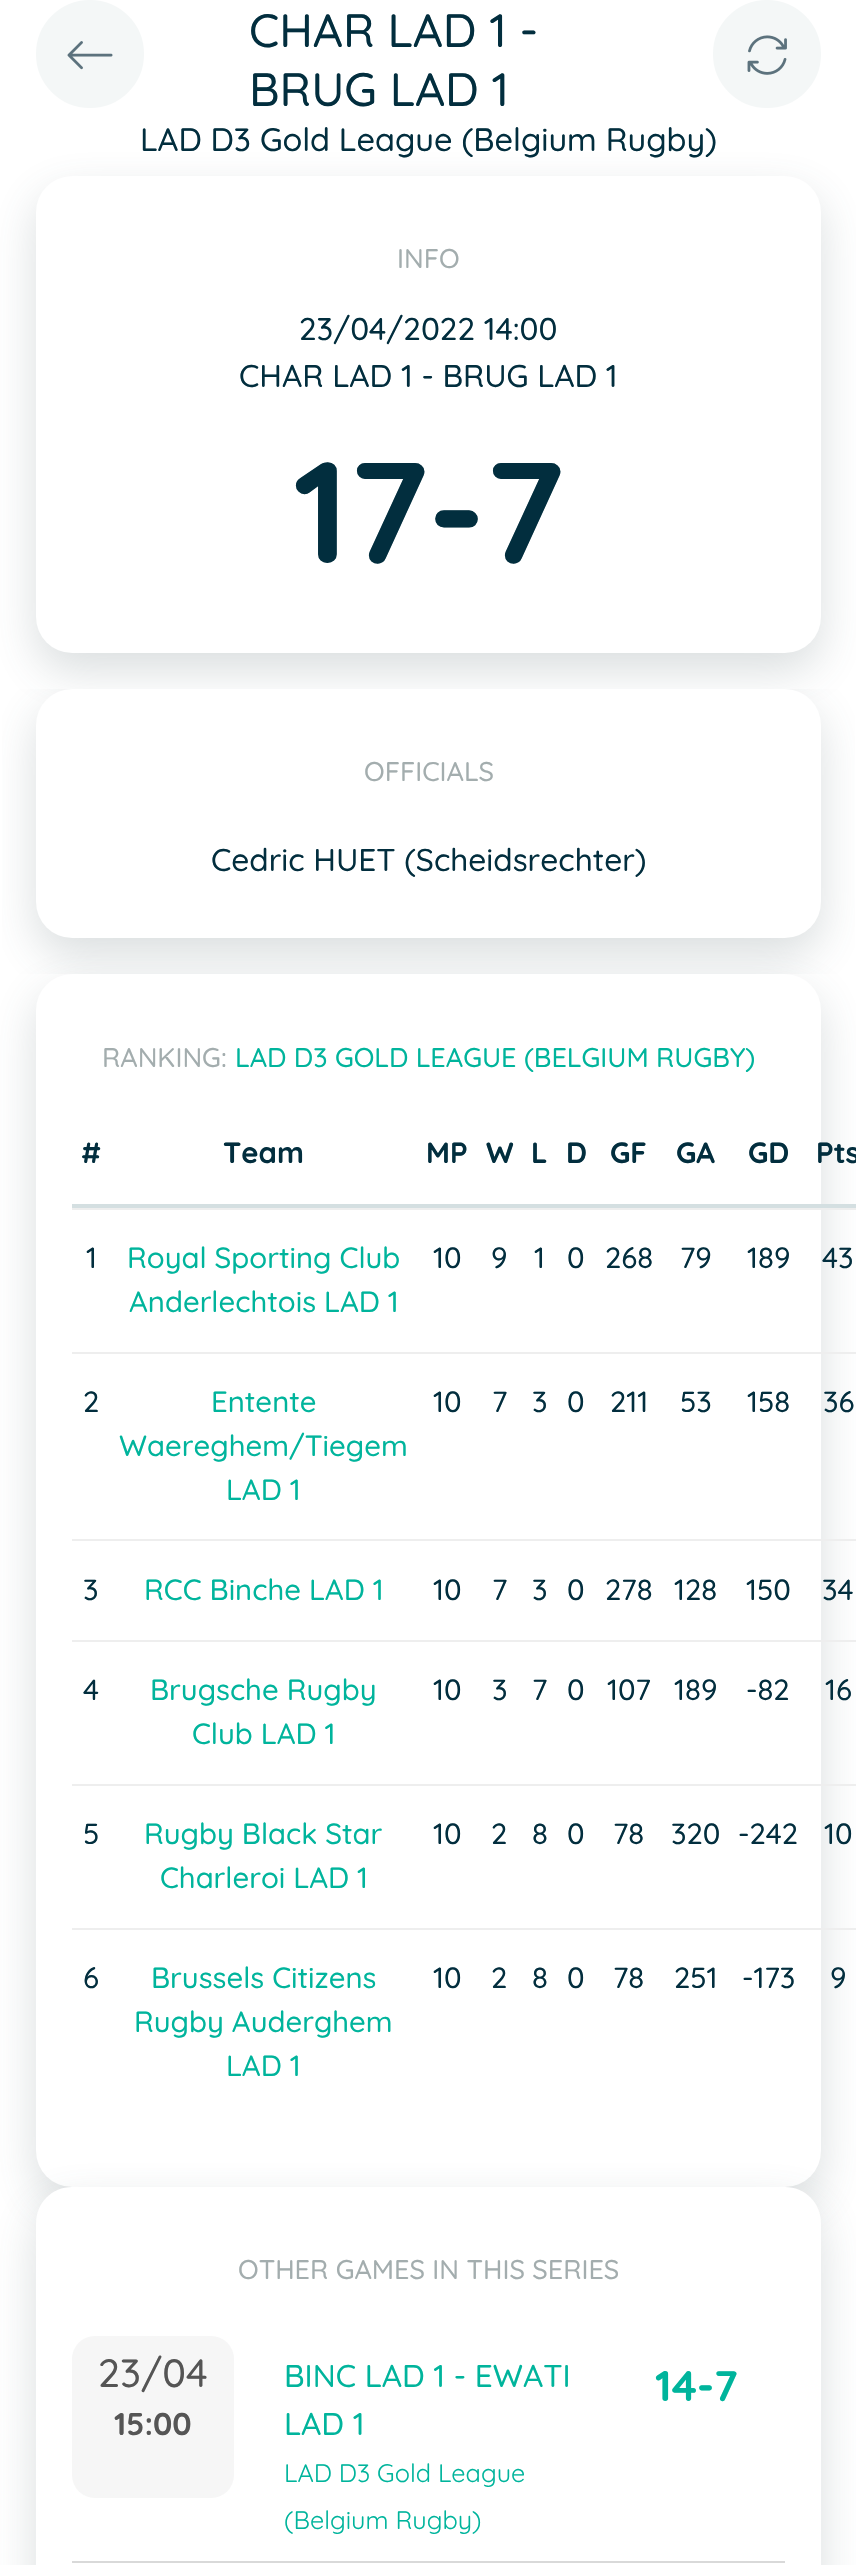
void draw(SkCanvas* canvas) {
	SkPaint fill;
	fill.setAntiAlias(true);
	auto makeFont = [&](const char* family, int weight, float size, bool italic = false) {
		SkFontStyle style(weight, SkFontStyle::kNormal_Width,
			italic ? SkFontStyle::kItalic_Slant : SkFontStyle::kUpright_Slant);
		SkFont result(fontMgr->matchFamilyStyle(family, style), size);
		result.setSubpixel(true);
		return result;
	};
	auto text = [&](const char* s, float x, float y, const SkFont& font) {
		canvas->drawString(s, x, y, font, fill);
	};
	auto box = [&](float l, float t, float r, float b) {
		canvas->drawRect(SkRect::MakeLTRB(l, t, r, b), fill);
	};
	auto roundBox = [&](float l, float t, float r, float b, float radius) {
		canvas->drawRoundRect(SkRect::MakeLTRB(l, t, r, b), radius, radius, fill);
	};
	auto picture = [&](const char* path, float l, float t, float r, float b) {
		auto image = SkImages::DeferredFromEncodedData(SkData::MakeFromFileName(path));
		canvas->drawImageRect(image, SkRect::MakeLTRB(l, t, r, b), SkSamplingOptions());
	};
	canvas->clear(0xFFFFFFFF);
	fill.setColor(0xFFF4F7F7);
	canvas->drawCircle(90, 54, 53, fill);
	fill.setStyle(SkPaint::kStroke_Style);
	fill.setStrokeWidth(2);
	canvas->drawCircle(90, 54, 53, fill);
	picture("image0.png", 67, 41, 113, 70);
	fill.setStyle(SkPaint::kFill_Style);
	canvas->drawCircle(767, 54, 53, fill);
	fill.setStyle(SkPaint::kStroke_Style);
	canvas->drawCircle(767, 54, 53, fill);
	picture("image1.png", 747, 35, 787, 75);
	fill.setStyle(SkPaint::kFill_Style);
	fill.setColor(0x33475C5D);
	fill.setMaskFilter(SkMaskFilter::MakeBlur(kNormal_SkBlurStyle, 22.5f));
	canvas->drawRoundRect(SkRect::MakeLTRB(36, 194, 821, 671), 36, 36, fill);
	fill.setMaskFilter(nullptr);
	fill.setColor(0xFFFFFFFF);
	roundBox(36, 176, 821, 653, 36);
	canvas->save();
	canvas->clipRect(SkRect::MakeLTRB(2, 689, 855, 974));
	fill.setColor(0x33475C5D);
	fill.setMaskFilter(SkMaskFilter::MakeBlur(kNormal_SkBlurStyle, 22.5f));
	canvas->drawRoundRect(SkRect::MakeLTRB(36, 707, 821, 956), 36, 36, fill);
	fill.setMaskFilter(nullptr);
	canvas->restore();
	fill.setColor(0xFFFFFFFF);
	roundBox(36, 689, 821, 938, 36);
	fill.setColor(0x33475C5D);
	fill.setMaskFilter(SkMaskFilter::MakeBlur(kNormal_SkBlurStyle, 22.5f));
	canvas->drawRoundRect(SkRect::MakeLTRB(36, 992, 821, 2205), 36, 36, fill);
	fill.setMaskFilter(nullptr);
	fill.setColor(0xFFFFFFFF);
	roundBox(36, 974, 821, 2187, 36);
	fill.setColor(0xFFD4DFE1);
	box(72, 1204, 856, 1208);
	fill.setColor(0xFFEEEEEE);
	box(72, 1208, 856, 1210);
	box(72, 1352, 856, 1354);
	box(72, 1539, 856, 1541);
	box(72, 1640, 856, 1642);
	box(72, 1784, 856, 1786);
	box(72, 1928, 856, 1930);
	fill.setColor(0x33475C5D);
	fill.setMaskFilter(SkMaskFilter::MakeBlur(kNormal_SkBlurStyle, 22.5f));
	canvas->drawRoundRect(SkRect::MakeLTRB(36, 2205, 821, 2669), 36, 36, fill);
	fill.setMaskFilter(nullptr);
	fill.setColor(0xFFFFFFFF);
	canvas->drawPath(SkPathBuilder().moveTo(72, 2187).lineTo(785, 2187).cubicTo(805, 2187, 821, 2203, 821, 2223).lineTo(821, 2565).lineTo(36, 2565).lineTo(36, 2223).cubicTo(36, 2203, 52, 2187, 72, 2187).close().detach(), fill);
	fill.setColor(0xFFD9D9D9);
	box(72, 2561, 785, 2563);
	fill.setColor(0xFFF6F6F6);
	roundBox(72, 2336, 234, 2498, 23);
	auto font1 = makeFont("Quicksand", 500, 46.75f);
	fill.setColor(0xFF022E3E);
	text("CHAR LAD 1 -", 249, 47, font1);
	text("BRUG LAD 1", 249, 106, font1);
	auto font2 = makeFont("Quicksand", 500, 32.4f);
	text("LAD D3 Gold League (Belgium Rugby)", 140, 151, font2);
	auto font3 = makeFont("Quicksand", 500, 27);
	fill.setColor(0xFFA3ADAE);
	text("INFO", 397, 268, font3);
	auto font4 = makeFont("Quicksand", 500, 31.5f);
	fill.setColor(0xFF022E3E);
	text("23/04/2022 14:00", 299, 340, font4);
	text("CHAR LAD 1 - BRUG LAD 1", 239, 387, font4);
	auto font5 = makeFont("Quicksand", 700, 144);
	text("17-7", 293, 563, font5);
	fill.setColor(0xFFA3ADAE);
	text("OFFICIALS", 364, 781, font3);
	fill.setColor(0xFF022E3E);
	text("Cedric HUET (Scheidsrechter)", 211, 871, font4);
	fill.setColor(0xFFA3ADAE);
	text("RANKING:", 102, 1067, font3);
	fill.setColor(0xFF00B49C);
	text("LAD D3 GOLD LEAGUE (BELGIUM RUGBY)", 235, 1067, font3);
	auto font6 = makeFont("Quicksand", 700, 29.25f);
	fill.setColor(0xFF022E3E);
	text("#", 81, 1163, font6);
	text("Team", 223, 1163, font6);
	text("MP", 426, 1163, font6);
	text("W", 486, 1163, font6);
	text("L", 531, 1163, font6);
	text("D", 566, 1163, font6);
	text("GF", 610, 1163, font6);
	text("GA", 676, 1163, font6);
	text("GD", 748, 1163, font6);
	text("Pts", 816, 1163, font6);
	auto font7 = makeFont("Quicksand", 500, 29.25f);
	text("1", 86, 1268, font7);
	fill.setColor(0xFF00B49C);
	text("Royal Sporting Club", 127, 1268, font7);
	text("Anderlechtois LAD 1", 129, 1312, font7);
	fill.setColor(0xFF022E3E);
	text("10", 433, 1268, font7);
	text("9", 491, 1268, font7);
	text("1", 534, 1268, font7);
	text("0", 567, 1268, font7);
	text("268", 605, 1268, font7);
	text("79", 680, 1268, font7);
	text("189", 747, 1268, font7);
	text("43", 822, 1268, font7);
	text("2", 83, 1412, font7);
	fill.setColor(0xFF00B49C);
	text("Entente", 211, 1412, font7);
	text("Waereghem/Tiegem", 119, 1456, font7);
	text("LAD 1", 226, 1500, font7);
	fill.setColor(0xFF022E3E);
	text("10", 433, 1412, font7);
	text("7", 492, 1412, font7);
	text("3", 532, 1412, font7);
	text("0", 567, 1412, font7);
	text("211", 610, 1412, font7);
	text("53", 680, 1412, font7);
	text("158", 747, 1412, font7);
	text("36", 823, 1412, font7);
	text("3", 83, 1600, font7);
	fill.setColor(0xFF00B49C);
	text("RCC Binche LAD 1", 144, 1600, font7);
	fill.setColor(0xFF022E3E);
	text("10", 433, 1600, font7);
	text("7", 492, 1600, font7);
	text("3", 532, 1600, font7);
	text("0", 567, 1600, font7);
	text("278", 605, 1600, font7);
	text("128", 674, 1600, font7);
	text("150", 746, 1600, font7);
	text("34", 822, 1600, font7);
	text("4", 83, 1700, font7);
	fill.setColor(0xFF00B49C);
	text("Brugsche Rugby", 150, 1700, font7);
	text("Club LAD 1", 192, 1744, font7);
	fill.setColor(0xFF022E3E);
	text("10", 433, 1700, font7);
	text("3", 492, 1700, font7);
	text("7", 532, 1700, font7);
	text("0", 567, 1700, font7);
	text("107", 607, 1700, font7);
	text("189", 674, 1700, font7);
	text("-82", 746, 1700, font7);
	text("16", 825, 1700, font7);
	text("5", 83, 1844, font7);
	fill.setColor(0xFF00B49C);
	text("Rugby Black Star", 144, 1844, font7);
	text("Charleroi LAD 1", 160, 1888, font7);
	fill.setColor(0xFF022E3E);
	text("10", 433, 1844, font7);
	text("2", 491, 1844, font7);
	text("8", 532, 1844, font7);
	text("0", 567, 1844, font7);
	text("78", 613, 1844, font7);
	text("320", 671, 1844, font7);
	text("-242", 738, 1844, font7);
	text("10", 824, 1844, font7);
	text("6", 83, 1988, font7);
	fill.setColor(0xFF00B49C);
	text("Brussels Citizens", 151, 1988, font7);
	text("Rugby Auderghem", 134, 2032, font7);
	text("LAD 1", 226, 2076, font7);
	fill.setColor(0xFF022E3E);
	text("10", 433, 1988, font7);
	text("2", 491, 1988, font7);
	text("8", 532, 1988, font7);
	text("0", 567, 1988, font7);
	text("78", 613, 1988, font7);
	text("251", 674, 1988, font7);
	text("-173", 742, 1988, font7);
	text("9", 830, 1988, font7);
	fill.setColor(0xFFA3ADAE);
	text("OTHER GAMES IN THIS SERIES", 238, 2279, font3);
	auto font8 = makeFont("Quicksand", 500, 39.5f);
	fill.setColor(0xFF555555);
	text("23/04", 98, 2387, font8);
	auto font9 = makeFont("Quicksand", 700, 31.5f);
	text("15:00", 114, 2435, font9);
	fill.setColor(0xFF00B49C);
	text("BINC LAD 1 - EWATI", 284, 2387, font4);
	text("LAD 1", 284, 2435, font4);
	auto font10 = makeFont("Quicksand", 400, 25.25f);
	text("LAD D3 Gold League", 284, 2482, font10);
	text("(Belgium Rugby)", 284, 2529, font10);
	auto font11 = makeFont("Quicksand", 700, 43);
	text("14-7", 655, 2401, font11);
}
